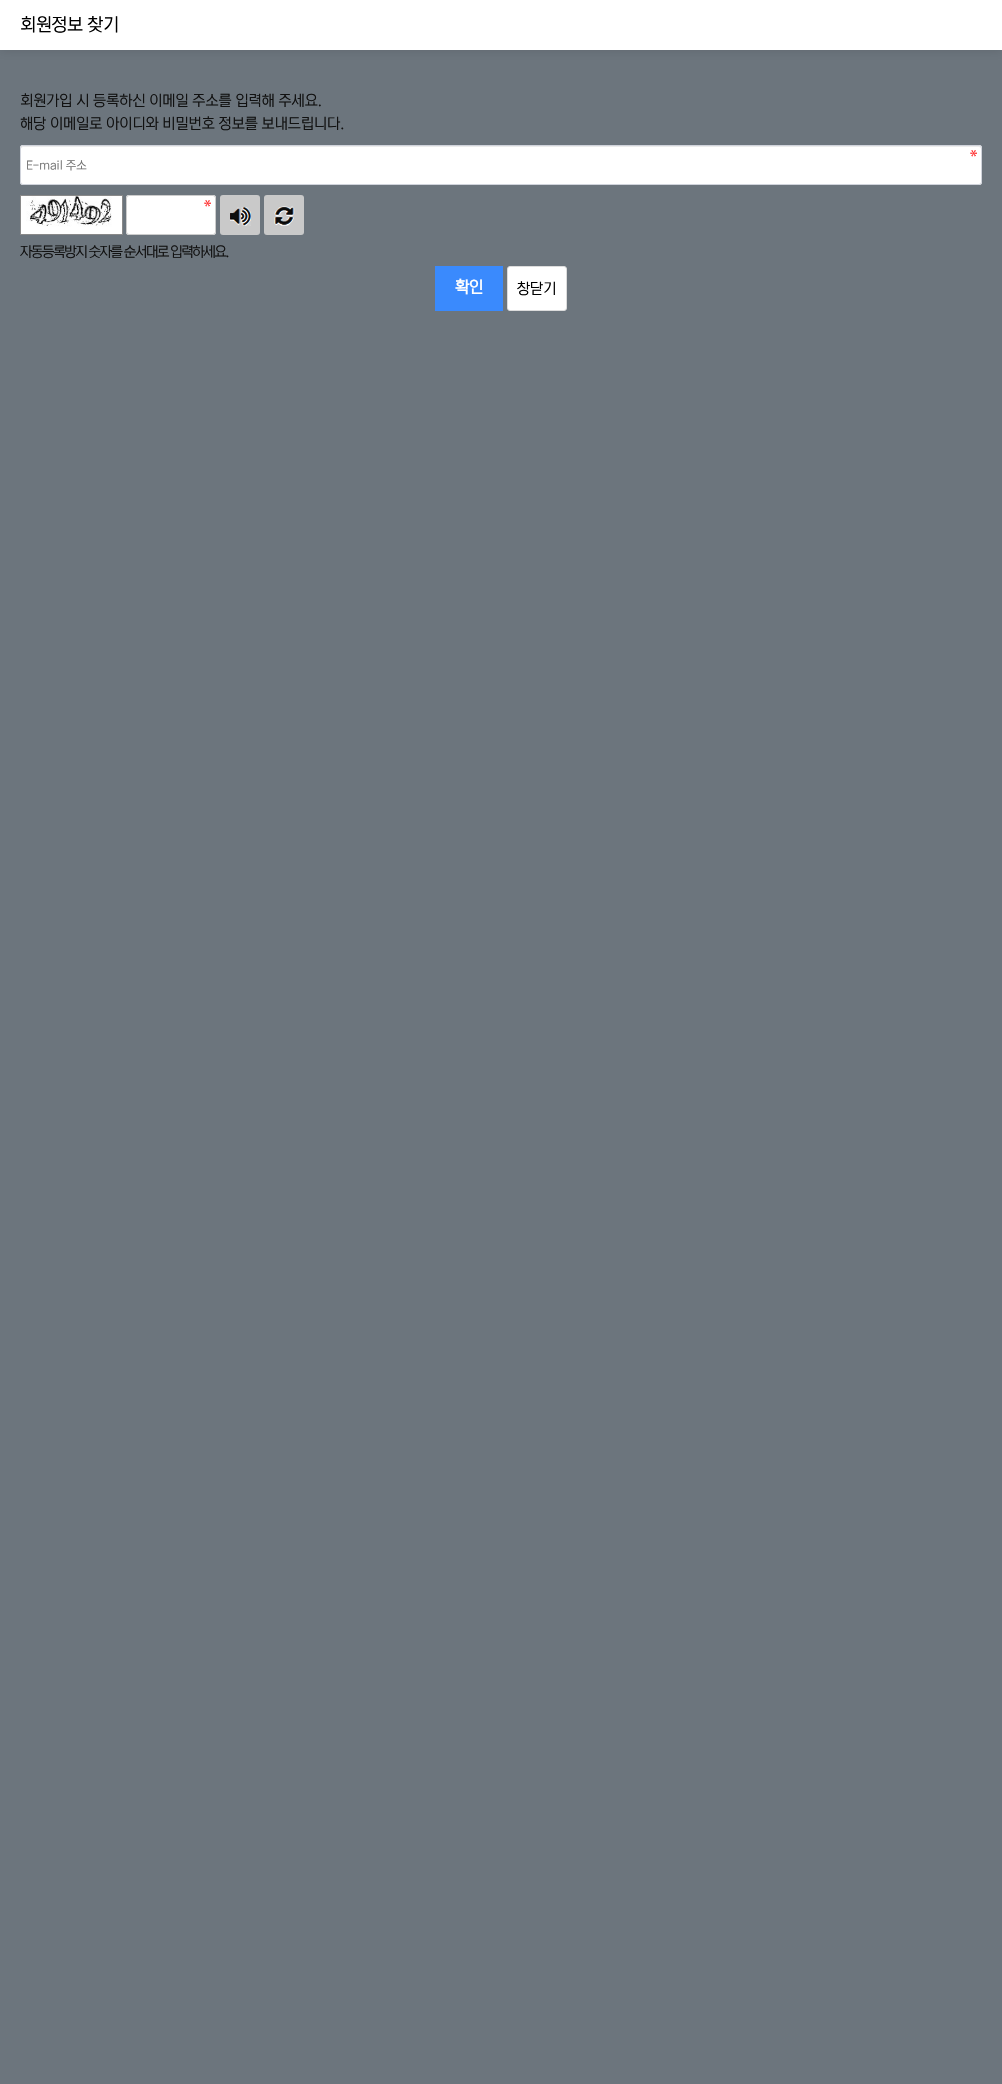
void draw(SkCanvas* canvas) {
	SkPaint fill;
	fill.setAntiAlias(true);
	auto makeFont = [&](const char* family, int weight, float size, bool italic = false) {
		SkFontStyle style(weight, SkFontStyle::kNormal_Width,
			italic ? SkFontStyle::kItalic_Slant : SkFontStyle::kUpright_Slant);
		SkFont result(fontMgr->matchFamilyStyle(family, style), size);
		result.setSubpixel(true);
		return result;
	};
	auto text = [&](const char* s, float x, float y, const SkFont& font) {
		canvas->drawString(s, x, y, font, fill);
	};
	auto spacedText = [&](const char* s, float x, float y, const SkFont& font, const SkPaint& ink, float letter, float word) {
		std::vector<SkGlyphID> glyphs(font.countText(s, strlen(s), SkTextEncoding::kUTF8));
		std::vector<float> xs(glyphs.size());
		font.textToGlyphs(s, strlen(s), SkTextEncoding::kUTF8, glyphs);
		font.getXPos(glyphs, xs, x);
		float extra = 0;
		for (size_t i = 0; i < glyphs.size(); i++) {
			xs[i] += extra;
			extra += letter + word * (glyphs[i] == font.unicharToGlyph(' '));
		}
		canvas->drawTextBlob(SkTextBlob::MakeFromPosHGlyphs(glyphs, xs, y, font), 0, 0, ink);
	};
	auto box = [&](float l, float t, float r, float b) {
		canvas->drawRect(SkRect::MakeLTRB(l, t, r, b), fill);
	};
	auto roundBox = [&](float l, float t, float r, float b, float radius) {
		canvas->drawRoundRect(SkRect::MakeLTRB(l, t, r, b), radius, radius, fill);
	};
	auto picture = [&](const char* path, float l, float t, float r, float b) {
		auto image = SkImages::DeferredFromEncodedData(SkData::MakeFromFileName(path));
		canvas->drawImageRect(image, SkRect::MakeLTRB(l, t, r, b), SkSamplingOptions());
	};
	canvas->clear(0xFF6C757D);
	fill.setColor(0x1A000000);
	fill.setMaskFilter(SkMaskFilter::MakeBlur(kNormal_SkBlurStyle, 5));
	canvas->drawRect(SkRect::MakeLTRB(0, 1, 1002, 51), fill);
	fill.setMaskFilter(nullptr);
	fill.setColor(0xFFFFFFFF);
	box(0, 0, 1002, 50);
	roundBox(20, 145, 982, 185, 3);
	picture("image0.png", 970, 150, 977, 157);
	fill.setColor(0xFFECECEC);
	canvas->drawPath(SkPathBuilder().moveTo(23, 147).lineTo(979, 147).cubicTo(980, 147, 981, 148, 981, 149).lineTo(981, 148).cubicTo(981, 147, 980, 146, 979, 146).lineTo(23, 146).lineTo(21, 147).lineTo(21, 149).cubicTo(21, 148, 22, 147, 23, 147).close().detach(), fill);
	fill.setStyle(SkPaint::kStroke_Style);
	fill.setStrokeWidth(1);
	fill.setColor(0xFFD0D3DB);
	canvas->drawRoundRect(SkRect::MakeLTRB(20.5f, 145.5f, 981.5f, 184.5f), 2.5f, 2.5f, fill);
	fill.setColor(0xFF898989);
	canvas->drawRect(SkRect::MakeLTRB(20.5f, 195.5f, 122.5f, 234.5f), fill);
	fill.setStyle(SkPaint::kFill_Style);
	fill.setColor(0xFFFFFFFF);
	roundBox(126, 195, 216, 235, 3);
	picture("image0.png", 204, 200, 211, 207);
	fill.setStyle(SkPaint::kStroke_Style);
	fill.setColor(0xFFCCCCCC);
	canvas->drawRoundRect(SkRect::MakeLTRB(126.5f, 195.5f, 215.5f, 234.5f), 2.5f, 2.5f, fill);
	picture("image1.png", 220, 195, 260, 235);
	picture("image2.png", 264, 195, 304, 235);
	picture("image3.png", 21, 196, 122, 234);
	fill.setStyle(SkPaint::kFill_Style);
	fill.setColor(0xFF3A8AFD);
	box(435, 266, 503, 311);
	fill.setColor(0xFFFFFFFF);
	canvas->drawRoundRect(SkRect::MakeLTRB(507.5f, 266.5f, 566.5f, 310.5f), 2.5f, 2.5f, fill);
	fill.setStyle(SkPaint::kStroke_Style);
	fill.setColor(0xFFDCDCDC);
	canvas->drawRoundRect(SkRect::MakeLTRB(507.5f, 266.5f, 566.5f, 310.5f), 2.5f, 2.5f, fill);
	auto font1 = makeFont("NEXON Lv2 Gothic", 400, 18);
	fill.setStyle(SkPaint::kFill_Style);
	fill.setColor(0xFF000000);
	text("회원정보 찾기", 20, 30, font1);
	auto font2 = makeFont("NEXON Lv2 Gothic", 400, 15);
	fill.setColor(0xFF111111);
	text("회원가입 시 등록하신 이메일 주소를 입력해 주세요.", 20, 105, font2);
	text("해당 이메일로 아이디와 비밀번호 정보를 보내드립니다.", 20, 128, font2);
	auto font3 = makeFont("NEXON Lv2 Gothic", 400, 12);
	fill.setColor(0xFF757575);
	text("E-mail 주소", 26, 169, font3);
	auto font4 = makeFont("NEXON Lv2 Gothic", 400, 14.25f);
	fill.setColor(0xFF111111);
	spacedText("자동등록방지 숫자를 순서대로 입력하세요.", 20, 256, font4, fill, -1.4f, 0);
	auto font5 = makeFont("NEXON Lv2 Gothic", 700, 16);
	fill.setColor(0xFFFFFFFF);
	text("확인", 455, 292, font5);
	fill.setColor(0xFF000000);
	text("창닫기", 517, 293, font2);
}
